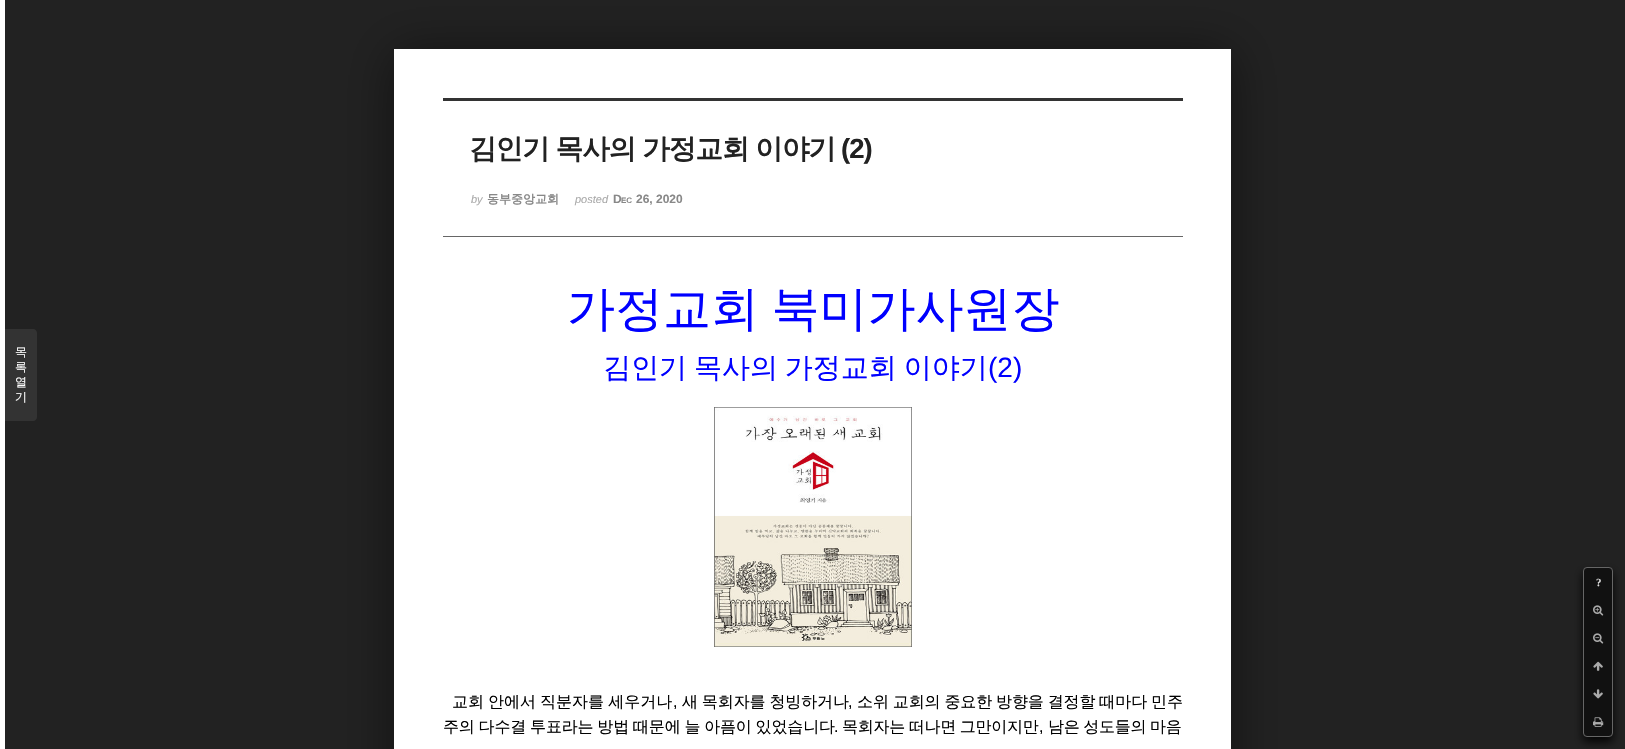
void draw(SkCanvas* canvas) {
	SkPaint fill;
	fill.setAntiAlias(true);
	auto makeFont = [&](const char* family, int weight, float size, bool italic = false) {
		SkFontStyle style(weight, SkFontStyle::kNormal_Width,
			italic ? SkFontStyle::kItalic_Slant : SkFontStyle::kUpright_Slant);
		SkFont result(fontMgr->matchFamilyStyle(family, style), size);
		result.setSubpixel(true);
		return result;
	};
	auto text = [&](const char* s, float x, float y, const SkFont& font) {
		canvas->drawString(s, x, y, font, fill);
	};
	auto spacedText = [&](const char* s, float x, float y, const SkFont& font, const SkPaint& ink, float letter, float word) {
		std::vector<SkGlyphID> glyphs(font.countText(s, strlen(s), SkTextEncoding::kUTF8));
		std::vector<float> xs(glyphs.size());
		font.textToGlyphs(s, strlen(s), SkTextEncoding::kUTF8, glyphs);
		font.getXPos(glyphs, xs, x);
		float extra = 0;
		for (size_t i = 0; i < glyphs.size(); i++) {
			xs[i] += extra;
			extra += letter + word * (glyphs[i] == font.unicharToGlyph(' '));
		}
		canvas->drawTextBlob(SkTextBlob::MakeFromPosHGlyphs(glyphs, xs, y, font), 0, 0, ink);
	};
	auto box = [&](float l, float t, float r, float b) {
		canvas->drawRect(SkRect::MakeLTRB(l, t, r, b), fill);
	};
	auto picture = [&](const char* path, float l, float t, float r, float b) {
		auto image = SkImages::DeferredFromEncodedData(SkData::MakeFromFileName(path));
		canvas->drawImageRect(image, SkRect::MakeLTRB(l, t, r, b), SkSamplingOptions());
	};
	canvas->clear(0xFF222222);
	fill.setColor(0x80000000);
	fill.setMaskFilter(SkMaskFilter::MakeBlur(kNormal_SkBlurStyle, 24));
	canvas->drawRect(SkRect::MakeLTRB(394, 53, 1231, 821), fill);
	fill.setMaskFilter(nullptr);
	fill.setColor(0xFFFFFFFF);
	box(394, 49, 1231, 749);
	box(0, 0, 5, 749);
	fill.setColor(0xFF333333);
	canvas->drawPath(SkPathBuilder().moveTo(5, 329).lineTo(33, 329).cubicTo(35, 329, 37, 331, 37, 333).lineTo(37, 417).cubicTo(37, 419, 35, 421, 33, 421).lineTo(5, 421).close().detach(), fill);
	box(443, 98, 1183, 101);
	fill.setColor(0xFF666666);
	box(443, 236, 1183, 237);
	fill.setColor(0xE6000000);
	fill.setMaskFilter(SkMaskFilter::MakeBlur(kNormal_SkBlurStyle, 5));
	canvas->drawRoundRect(SkRect::MakeLTRB(1583, 572, 1613, 742), 4, 4, fill);
	fill.setMaskFilter(nullptr);
	fill.setColor(0xFF111111);
	canvas->drawRoundRect(SkRect::MakeLTRB(1583.5f, 567.5f, 1612.5f, 736.5f), 3.5f, 3.5f, fill);
	fill.setStyle(SkPaint::kStroke_Style);
	fill.setStrokeWidth(1);
	fill.setColor(0xFF666666);
	canvas->drawRoundRect(SkRect::MakeLTRB(1583.5f, 567.5f, 1612.5f, 736.5f), 3.5f, 3.5f, fill);
	picture("image0.png", 1593, 605, 1604, 616);
	picture("image1.png", 1593, 633, 1604, 644);
	picture("image2.png", 1593, 661, 1603, 671);
	picture("image3.png", 1593, 689, 1603, 699);
	picture("image4.png", 1593, 717, 1604, 727);
	picture("image5.png", 714, 407, 912, 647);
	auto font1 = makeFont("WenQuanYi Zen Hei", 500, 12);
	fill.setStyle(SkPaint::kFill_Style);
	fill.setColor(0xFFFFFFFF);
	text("목", 15, 356, font1);
	text("록", 15, 371, font1);
	text("열", 15, 386, font1);
	text("기", 15, 401, font1);
	auto font2 = makeFont("WenQuanYi Zen Hei", 700, 27.6f);
	fill.setColor(0xFF222222);
	spacedText("김인기 목사의 가정교회 이야기", 469, 158, font2, fill, -1, -0.5f);
	auto font3 = makeFont("Liberation Sans", 700, 27.6f);
	spacedText("(2)", 841, 158, font3, fill, -1, 0);
	auto font4 = makeFont("Liberation Sans", 400, 11, true);
	fill.setColor(0xFFAAAAAA);
	text("by", 471, 203, font4);
	auto font5 = makeFont("WenQuanYi Zen Hei", 700, 12);
	fill.setColor(0xFF888888);
	text("동부중앙교회", 487, 203, font5);
	fill.setColor(0xFFAAAAAA);
	text("posted", 575, 203, font4);
	auto font6 = makeFont("Liberation Sans", 700, 12);
	fill.setColor(0xFF888888);
	text("D", 613, 203, font6);
	auto font7 = makeFont("Liberation Sans", 700, 8);
	text("EC", 621, 203, font7);
	text("26, 2020", 636, 203, font6);
	auto font8 = makeFont("Liberation Serif", 700, 11);
	fill.setColor(0xFFDDDDDD);
	spacedText("?", 1596, 586, font8, fill, -1, 0);
	auto font9 = makeFont("WenQuanYi Zen Hei", 500, 48);
	fill.setColor(0xFF0000FF);
	spacedText("가정교회 북미가사원장", 567, 325, font9, fill, 0, -2);
	auto font10 = makeFont("WenQuanYi Zen Hei", 500, 28);
	spacedText("김인기 목사의 가정교회 이야기", 603, 377, font10, fill, 0, -1.5f);
	auto font11 = makeFont("Liberation Sans", 400, 28);
	text("(2)", 988, 377, font11);
	auto font12 = makeFont("WenQuanYi Zen Hei", 500, 16);
	fill.setColor(0xFF000000);
	spacedText("교회 안에서 직분자를 세우거나", 452, 707, font12, fill, 0, -0.75f);
	auto font13 = makeFont("Liberation Sans", 400, 16);
	text(",", 673, 707, font13);
	spacedText("새 목회자를 청빙하거나", 682, 707, font12, fill, -0.1f, -0.75f);
	text(",", 848, 707, font13);
	spacedText("소위 교회의 중요한 방향을 결정할 때마다 민주", 857, 707, font12, fill, -0.1f, -0.75f);
	spacedText("주의 다수결 투표라는 방법 때문에 늘 아픔이 있었습니다", 443, 732, font12, fill, -0.15f, -0.75f);
	text(".", 834, 732, font13);
	spacedText("목회자는 떠나면 그만이지만", 842, 732, font12, fill, -0.25f, -0.75f);
	text(",", 1039, 732, font13);
	spacedText("남은 성도들의 마음", 1048, 732, font12, fill, -0.25f, -0.75f);
}
